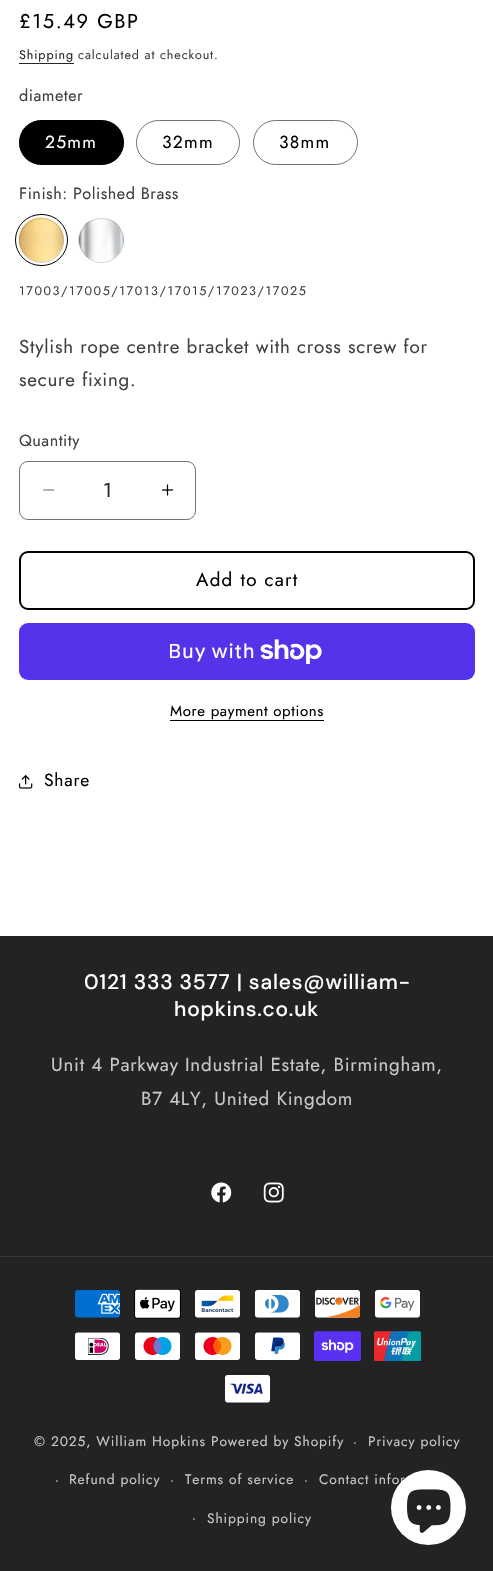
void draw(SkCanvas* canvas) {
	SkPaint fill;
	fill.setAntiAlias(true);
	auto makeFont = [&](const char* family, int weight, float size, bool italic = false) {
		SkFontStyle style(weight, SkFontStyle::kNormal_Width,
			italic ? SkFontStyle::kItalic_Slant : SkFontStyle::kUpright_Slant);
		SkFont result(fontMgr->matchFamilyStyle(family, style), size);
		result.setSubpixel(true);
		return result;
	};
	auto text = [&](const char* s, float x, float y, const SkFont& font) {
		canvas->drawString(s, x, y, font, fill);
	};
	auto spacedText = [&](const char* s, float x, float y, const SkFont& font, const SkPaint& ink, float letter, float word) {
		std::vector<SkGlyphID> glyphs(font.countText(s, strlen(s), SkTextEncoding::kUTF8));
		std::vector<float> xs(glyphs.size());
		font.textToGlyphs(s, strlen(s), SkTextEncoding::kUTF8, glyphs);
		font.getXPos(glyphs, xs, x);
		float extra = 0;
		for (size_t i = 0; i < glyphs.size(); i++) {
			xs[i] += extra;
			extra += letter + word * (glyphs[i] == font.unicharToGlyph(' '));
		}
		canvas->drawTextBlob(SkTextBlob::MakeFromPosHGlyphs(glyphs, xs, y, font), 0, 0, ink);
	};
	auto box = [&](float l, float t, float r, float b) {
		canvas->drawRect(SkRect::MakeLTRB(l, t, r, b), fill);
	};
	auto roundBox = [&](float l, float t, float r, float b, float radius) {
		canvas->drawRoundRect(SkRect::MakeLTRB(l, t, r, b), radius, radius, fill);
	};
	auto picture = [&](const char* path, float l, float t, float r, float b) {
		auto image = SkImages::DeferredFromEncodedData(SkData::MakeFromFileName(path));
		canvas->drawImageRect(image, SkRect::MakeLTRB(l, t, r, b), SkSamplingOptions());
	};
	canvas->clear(0xFFFFFFFF);
	fill.setColor(0xFF262626);
	box(19, 63, 74, 64);
	fill.setColor(0xFF000000);
	roundBox(19, 120, 124, 165, 22.5f);
	fill.setStyle(SkPaint::kStroke_Style);
	fill.setStrokeWidth(1);
	fill.setColor(0x8C000000);
	canvas->drawRoundRect(SkRect::MakeLTRB(19.5f, 120.5f, 123.5f, 164.5f), 22, 22, fill);
	fill.setColor(0xFF737373);
	canvas->drawRoundRect(SkRect::MakeLTRB(136.5f, 120.5f, 239.5f, 164.5f), 22, 22, fill);
	canvas->drawRoundRect(SkRect::MakeLTRB(253.5f, 120.5f, 357.5f, 164.5f), 22, 22, fill);
	picture("image0.png", 18, 217, 64, 263);
	fill.setColor(0x26000000);
	canvas->drawCircle(41.5f, 240.5f, 22, fill);
	fill.setColor(0xFF000000);
	canvas->drawRoundRect(SkRect::MakeLTRB(15.5f, 214.5f, 67.5f, 265.5f), 25.5f, 25.5f, fill);
	picture("image1.png", 78, 218, 124, 261);
	fill.setColor(0x26000000);
	canvas->drawCircle(101.5f, 240.5f, 22, fill);
	picture("image2.png", 43, 489, 55, 491);
	picture("image3.png", 162, 484, 174, 496);
	fill.setColor(0xFF737373);
	canvas->drawRoundRect(SkRect::MakeLTRB(19.5f, 461.5f, 195.5f, 519.5f), 8.5f, 8.5f, fill);
	fill.setStrokeWidth(2);
	fill.setColor(0xFF000000);
	canvas->drawRoundRect(SkRect::MakeLTRB(20, 552, 474, 609), 8, 8, fill);
	fill.setStyle(SkPaint::kFill_Style);
	fill.setColor(0xFF5433EB);
	roundBox(19, 623, 475, 680, 9);
	picture("image4.png", 260, 639, 322, 664);
	fill.setColor(0xFF000000);
	box(170, 720, 324, 721);
	picture("image5.png", 18, 775, 33, 789);
	fill.setColor(0xFF232323);
	box(0, 936, 493, 1571);
	picture("image6.png", 211, 1182, 232, 1203);
	picture("image7.png", 263, 1182, 284, 1203);
	fill.setColor(0xFF353535);
	box(0, 1256, 493, 1257);
	picture("image8.png", 75, 1290, 120, 1318);
	picture("image9.png", 134, 1289, 181, 1319);
	picture("image10.png", 195, 1290, 240, 1318);
	picture("image11.png", 255, 1290, 300, 1318);
	picture("image12.png", 315, 1290, 360, 1318);
	picture("image13.png", 375, 1290, 420, 1318);
	picture("image14.png", 75, 1332, 120, 1360);
	picture("image15.png", 135, 1332, 180, 1360);
	picture("image16.png", 195, 1332, 240, 1360);
	picture("image17.png", 255, 1332, 300, 1360);
	picture("image18.png", 314, 1331, 361, 1361);
	picture("image19.png", 374, 1331, 421, 1361);
	picture("image20.png", 225, 1375, 270, 1403);
	auto font1 = makeFont("Jost", 400, 20);
	fill.setColor(0xFF000000);
	spacedText("£15.49 GBP", 19, 28, font1, fill, 1.6f, 0);
	auto font2 = makeFont("Jost", 400, 12.5f);
	fill.setColor(0xFF262626);
	spacedText("Shipping", 19, 59, font2, fill, 0.9f, 0);
	fill.setColor(0xFF404040);
	spacedText("calculated at checkout.", 78, 59, font2, fill, 0.9f, 0);
	auto font3 = makeFont("Jost", 400, 16.25f);
	spacedText("diameter", 19, 101, font3, fill, 0.5f, 0);
	auto font4 = makeFont("Jost", 400, 17.5f);
	fill.setColor(0xFFFFFFFF);
	spacedText("25mm", 45, 148, font4, fill, 1.25f, 0);
	fill.setColor(0xFF000000);
	spacedText("32mm", 162, 148, font4, fill, 1.25f, 0);
	spacedText("38mm", 279, 148, font4, fill, 1.25f, 0);
	fill.setColor(0xFF404040);
	spacedText("Finish: Polished Brass", 19, 199, font3, fill, 0.5f, 0);
	spacedText("17003/17005/17013/17015/17023/17025", 19, 295, font2, fill, 1.6f, 0);
	auto font5 = makeFont("Jost", 400, 18.75f);
	spacedText("Stylish rope centre bracket with cross screw for", 19, 353, font5, fill, 0.75f, 0);
	spacedText("secure fixing.", 19, 386, font5, fill, 0.75f, 0);
	spacedText("Quantity", 19, 446, font3, fill, 0.5f, 0);
	fill.setColor(0xFF262626);
	text("1", 103, 497, font1);
	fill.setColor(0xFF000000);
	spacedText("Add to cart", 196, 586, font5, fill, 1.25f, 0);
	auto font6 = makeFont("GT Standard", 400, 20);
	fill.setColor(0xFFFFFFFF);
	spacedText("Buy with", 168, 658, font6, fill, 0.75f, 0);
	auto font7 = makeFont("Jost", 400, 15);
	fill.setColor(0xFF000000);
	spacedText("More payment options", 170, 716, font7, fill, 0.6f, 0);
	spacedText("Share", 44, 786, font4, fill, 0.75f, 0);
	auto font8 = makeFont("DM Sans", 500, 21);
	fill.setColor(0xFFFFFFFF);
	spacedText("0121 333 3577 | sales@william-", 84, 989, font8, fill, 0.8f, 0);
	spacedText("hopkins.co.uk", 174, 1016, font8, fill, 0.8f, 0);
	fill.setColor(0xFFC8C8C8);
	spacedText("Unit 4 Parkway Industrial Estate, Birmingham,", 51, 1071, font5, fill, 0.75f, 0);
	spacedText("B7 4LY, United Kingdom", 141, 1105, font5, fill, 0.75f, 0);
	auto font9 = makeFont("Jost", 400, 13.75f);
	spacedText("© 2025, William Hopkins Powered by Shopify", 34, 1446, font9, fill, 0.9f, 0);
	spacedText("·", 353, 1446, font2, fill, 0.9f, 0);
	spacedText("Privacy policy", 368, 1446, font9, fill, 0.9f, 0);
	spacedText("·", 55, 1484, font2, fill, 0.9f, 0);
	spacedText("Refund policy", 69, 1484, font9, fill, 0.9f, 0);
	spacedText("·", 170, 1484, font2, fill, 0.9f, 0);
	spacedText("Terms of service", 185, 1484, font9, fill, 0.9f, 0);
	spacedText("·", 304, 1484, font2, fill, 0.9f, 0);
	spacedText("Contact infor", 319, 1484, font9, fill, 0.9f, 0);
	spacedText("·", 192, 1522, font2, fill, 0.9f, 0);
	spacedText("Shipping policy", 207, 1523, font9, fill, 0.9f, 0);
	fill.setColor(0xFFFFFFFF);
	canvas->drawCircle(428.5f, 1507.5f, 37.5f, fill);
	picture("image21.png", 407, 1489, 451, 1533);
}
